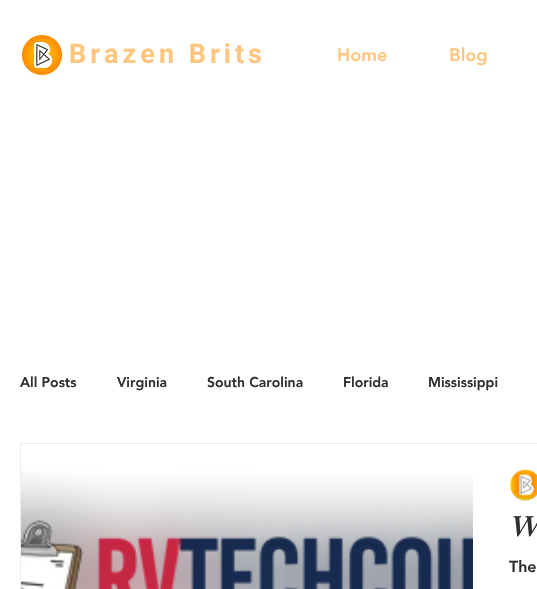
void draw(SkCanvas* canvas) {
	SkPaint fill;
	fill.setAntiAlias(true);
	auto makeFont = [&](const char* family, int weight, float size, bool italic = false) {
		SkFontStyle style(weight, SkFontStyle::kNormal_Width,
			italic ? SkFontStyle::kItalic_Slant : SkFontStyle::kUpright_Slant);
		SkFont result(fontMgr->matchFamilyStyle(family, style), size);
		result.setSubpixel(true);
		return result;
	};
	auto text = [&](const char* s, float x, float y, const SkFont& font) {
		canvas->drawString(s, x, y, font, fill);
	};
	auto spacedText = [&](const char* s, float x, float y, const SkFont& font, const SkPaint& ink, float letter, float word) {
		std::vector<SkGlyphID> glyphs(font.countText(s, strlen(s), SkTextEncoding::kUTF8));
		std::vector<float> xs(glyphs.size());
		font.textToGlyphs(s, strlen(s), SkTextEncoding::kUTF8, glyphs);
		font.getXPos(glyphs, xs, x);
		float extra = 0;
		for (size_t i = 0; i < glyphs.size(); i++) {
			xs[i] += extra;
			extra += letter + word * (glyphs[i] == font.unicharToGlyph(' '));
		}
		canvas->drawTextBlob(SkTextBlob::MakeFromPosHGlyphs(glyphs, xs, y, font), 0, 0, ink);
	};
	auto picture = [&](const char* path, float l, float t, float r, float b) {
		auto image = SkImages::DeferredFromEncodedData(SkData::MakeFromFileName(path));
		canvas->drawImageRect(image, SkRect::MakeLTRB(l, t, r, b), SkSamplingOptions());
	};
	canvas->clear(0xFFFFFFFF);
	picture("image0.png", 22, 35, 62, 75);
	fill.setStyle(SkPaint::kStroke_Style);
	fill.setStrokeWidth(1);
	fill.setColor(0xFFEBEBF0);
	canvas->drawRect(SkRect::MakeLTRB(20.5f, 443.5f, 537.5f, 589.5f), fill);
	picture("image1.png", 21, 471, 473, 589);
	picture("image2.png", 21, 520, 473, 589);
	picture("image3.png", 509, 469, 537, 501);
	auto font1 = makeFont("Roboto", 700, 27);
	fill.setStyle(SkPaint::kFill_Style);
	fill.setColor(0xFFFFC680);
	spacedText("Brazen Brits", 69, 63, font1, fill, 4, 0);
	auto font2 = makeFont("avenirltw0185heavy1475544", 900, 18);
	text("Home", 337, 61, font2);
	text("Blog", 449, 61, font2);
	auto font3 = makeFont("avenirltw0185heavy1475544", 900, 14);
	fill.setColor(0xFF2F2E2E);
	text("All Posts", 20, 387, font3);
	text("Virginia", 117, 387, font3);
	text("South Carolina", 207, 387, font3);
	text("Florida", 343, 387, font3);
	text("Mississippi", 428, 387, font3);
	auto font4 = makeFont("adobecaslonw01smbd", 600, 28, true);
	text("W", 509, 536, font4);
	auto font5 = makeFont("avenirltw0185heavy1475544", 900, 16);
	text("The", 509, 572, font5);
}
